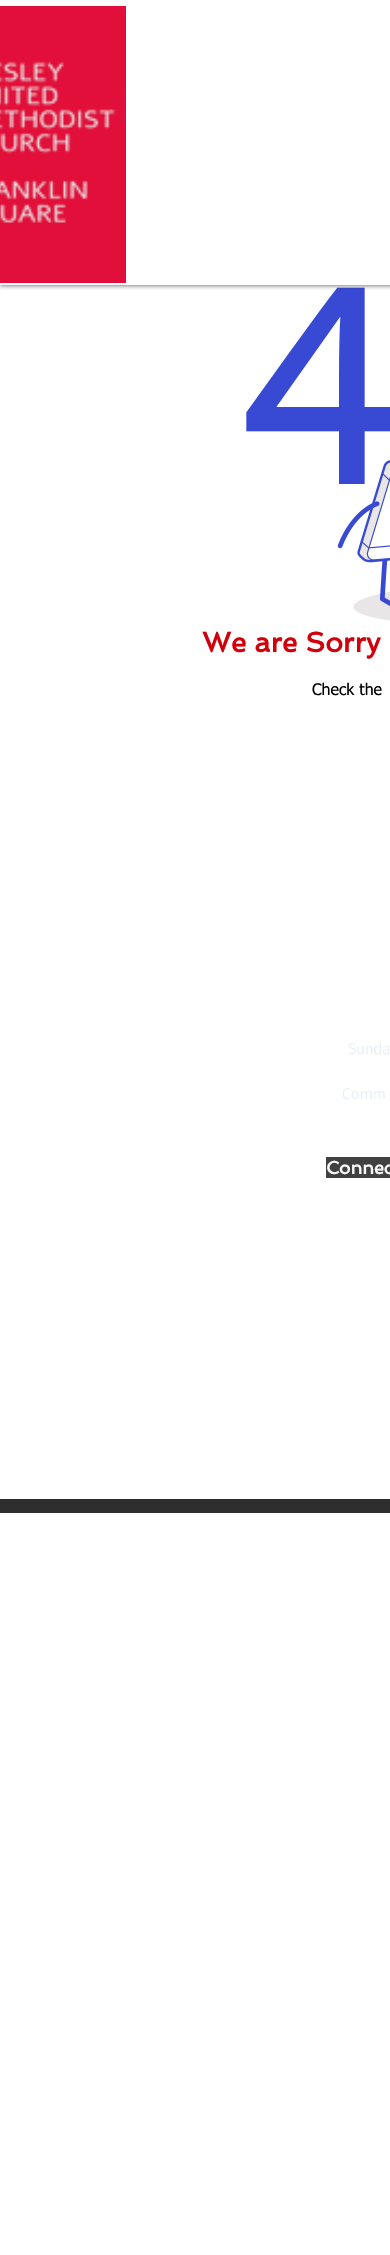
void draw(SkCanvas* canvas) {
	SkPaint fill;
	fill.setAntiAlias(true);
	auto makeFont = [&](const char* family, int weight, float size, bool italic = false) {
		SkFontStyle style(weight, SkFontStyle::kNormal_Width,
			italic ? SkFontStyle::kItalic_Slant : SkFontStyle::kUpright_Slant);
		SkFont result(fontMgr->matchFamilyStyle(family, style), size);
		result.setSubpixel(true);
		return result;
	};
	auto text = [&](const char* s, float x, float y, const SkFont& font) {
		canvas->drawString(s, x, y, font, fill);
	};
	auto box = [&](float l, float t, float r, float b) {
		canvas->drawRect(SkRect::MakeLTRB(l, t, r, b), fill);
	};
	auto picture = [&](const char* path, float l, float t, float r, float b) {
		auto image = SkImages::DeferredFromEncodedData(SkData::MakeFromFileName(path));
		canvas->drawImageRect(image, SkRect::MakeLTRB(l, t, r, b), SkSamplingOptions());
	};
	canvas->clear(0xFFFFFFFF);
	picture("image1.png", 246, 287, 390, 621);
	canvas->save();
	canvas->clipRect(SkRect::MakeLTRB(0, 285, 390, 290));
	fill.setColor(0xB3000000);
	fill.setMaskFilter(SkMaskFilter::MakeBlur(kNormal_SkBlurStyle, 2.5f));
	canvas->drawRect(SkRect::MakeLTRB(0, 0, 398, 285), fill);
	fill.setMaskFilter(nullptr);
	canvas->restore();
	fill.setColor(0xFFE10F39);
	box(0, 6, 126, 283);
	picture("image0.png", 0, 61, 116, 223);
	fill.setColor(0xFF414141);
	box(326, 1157, 390, 1178);
	fill.setColor(0xFF2F2E2E);
	box(0, 1499, 390, 1513);
	auto font1 = makeFont("Spinnaker", 700, 28);
	fill.setColor(0xFFD1000A);
	text("We are Sorry", 202, 652, font1);
	auto font2 = makeFont("tahoma", 400, 16);
	fill.setColor(0xFF000000);
	text("Check the", 312, 695, font2);
	auto font3 = makeFont("Assistant", 300, 16);
	fill.setColor(0xFFE4EEF2);
	text("Sunda", 348, 1054, font3);
	text("Comm", 342, 1099, font3);
	auto font4 = makeFont("Spinnaker", 700, 18);
	fill.setColor(0xFFFAFAFA);
	text("Connec", 326, 1174, font4);
}
